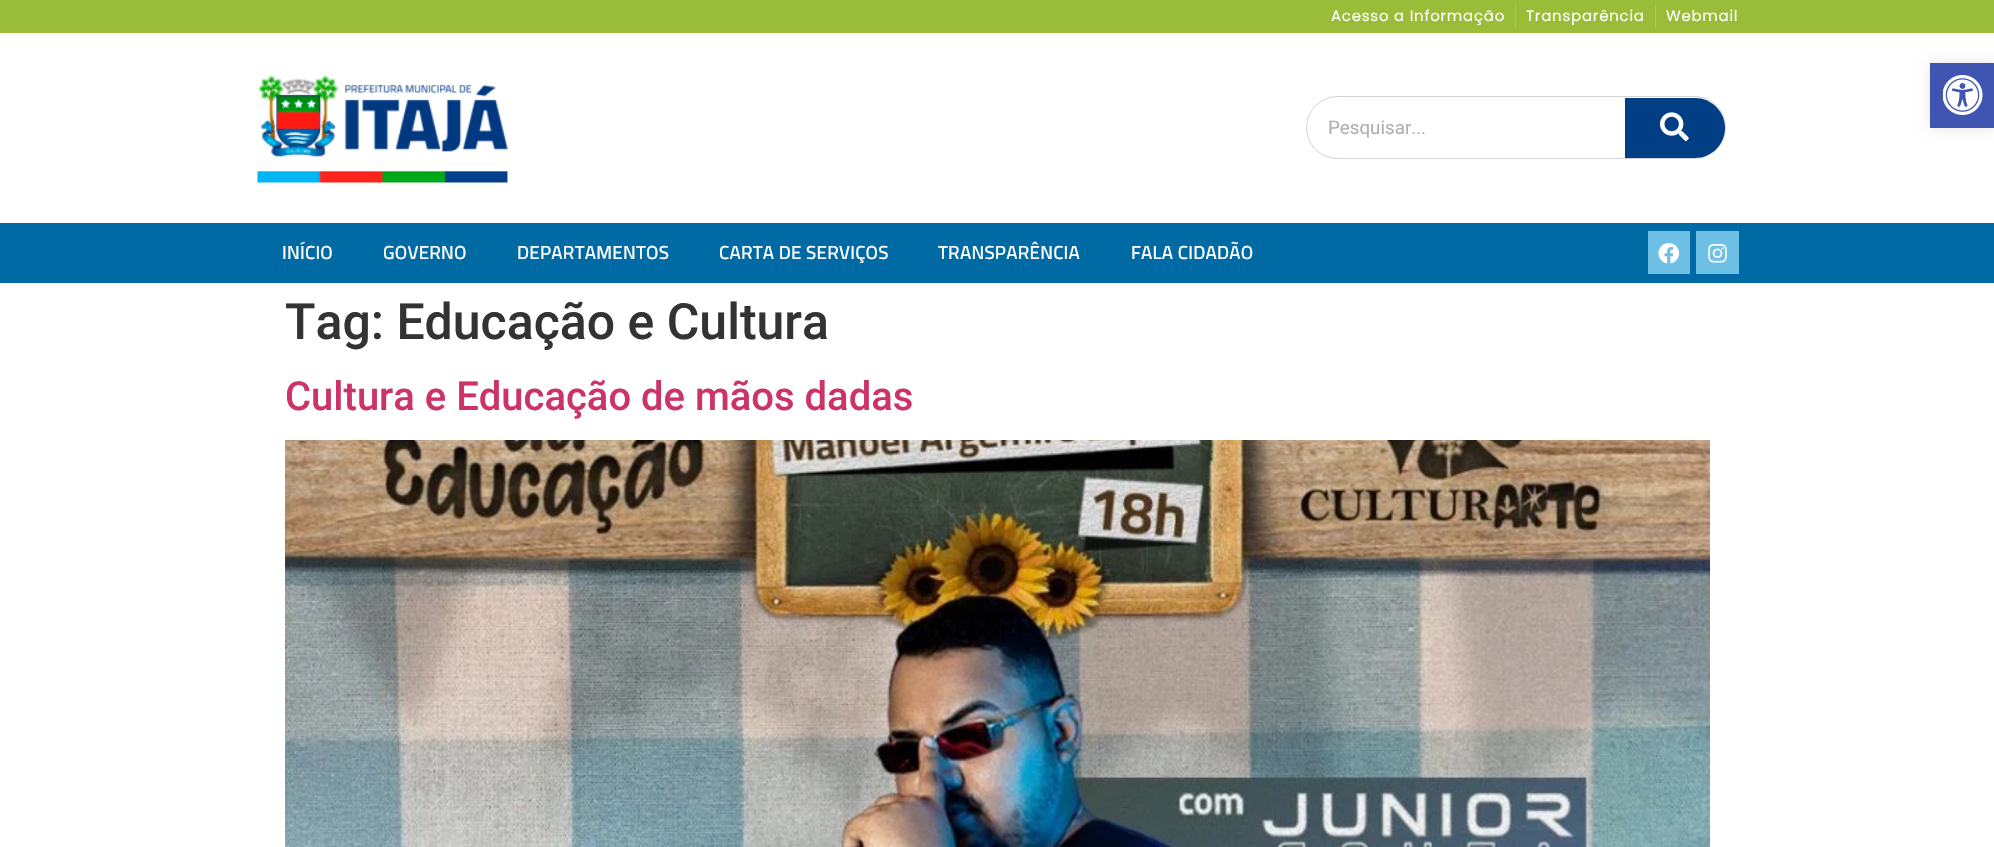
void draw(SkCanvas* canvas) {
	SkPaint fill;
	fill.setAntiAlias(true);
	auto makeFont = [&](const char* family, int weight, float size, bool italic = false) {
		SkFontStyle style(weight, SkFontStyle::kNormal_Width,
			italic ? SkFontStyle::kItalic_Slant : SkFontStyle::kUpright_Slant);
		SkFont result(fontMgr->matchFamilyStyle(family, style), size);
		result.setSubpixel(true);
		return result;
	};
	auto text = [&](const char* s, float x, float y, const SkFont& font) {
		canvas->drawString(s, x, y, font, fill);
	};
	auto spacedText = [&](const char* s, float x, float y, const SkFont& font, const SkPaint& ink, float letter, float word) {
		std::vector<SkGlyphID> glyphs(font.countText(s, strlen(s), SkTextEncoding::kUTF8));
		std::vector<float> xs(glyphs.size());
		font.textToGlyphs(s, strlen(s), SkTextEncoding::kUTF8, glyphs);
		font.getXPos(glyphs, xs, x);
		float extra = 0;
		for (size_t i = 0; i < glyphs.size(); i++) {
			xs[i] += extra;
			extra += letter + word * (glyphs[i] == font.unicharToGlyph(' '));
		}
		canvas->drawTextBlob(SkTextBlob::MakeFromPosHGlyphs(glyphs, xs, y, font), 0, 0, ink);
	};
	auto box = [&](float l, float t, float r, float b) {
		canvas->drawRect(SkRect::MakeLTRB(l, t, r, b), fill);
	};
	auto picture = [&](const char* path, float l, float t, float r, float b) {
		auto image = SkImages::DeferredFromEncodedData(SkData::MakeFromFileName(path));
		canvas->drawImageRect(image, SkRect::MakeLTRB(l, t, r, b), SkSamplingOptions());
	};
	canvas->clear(0xFFFFFFFF);
	fill.setColor(0xFF99BC39);
	box(0, 0, 1994, 33);
	fill.setColor(0xFFABCE4A);
	box(1515, 5, 1516, 28);
	box(1655, 5, 1656, 28);
	picture("image0.png", 257, 75, 508, 183);
	fill.setStyle(SkPaint::kStroke_Style);
	fill.setStrokeWidth(1);
	fill.setColor(0xFFCED4DA);
	canvas->drawRoundRect(SkRect::MakeLTRB(1306.5f, 96.5f, 1725.5f, 158.5f), 31, 31, fill);
	fill.setStyle(SkPaint::kFill_Style);
	fill.setColor(0xFF023E84);
	canvas->drawPath(SkPathBuilder().moveTo(1625, 98).lineTo(1695, 98).cubicTo(1711.5f, 98, 1725, 111.5f, 1725, 128).cubicTo(1725, 144.5f, 1711.5f, 158, 1695, 158).lineTo(1625, 158).close().detach(), fill);
	picture("image1.png", 1660, 112, 1689, 142);
	fill.setColor(0xFF006AA4);
	box(0, 223, 1994, 283);
	fill.setColor(0xFF6EC1E4);
	box(1648, 231, 1690, 274);
	picture("image2.png", 1658, 243, 1679, 264);
	box(1696, 231, 1739, 274);
	picture("image3.png", 1708, 243, 1727, 263);
	fill.setColor(0x1A000000);
	fill.setMaskFilter(SkMaskFilter::MakeBlur(kNormal_SkBlurStyle, 6));
	canvas->drawRect(SkRect::MakeLTRB(1930, 63, 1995, 128), fill);
	fill.setMaskFilter(nullptr);
	fill.setColor(0xFF4054B2);
	box(1930, 63, 1994, 128);
	picture("image4.png", 1943, 75, 1983, 115);
	picture("image5.png", 285, 440, 1710, 847);
	auto font1 = makeFont("Poppins", 400, 15);
	fill.setColor(0xFFFFFFFF);
	spacedText("Acesso a Informação", 1331, 21, font1, fill, 0.75f, 0);
	spacedText("Transparência", 1526, 21, font1, fill, 0.75f, 0);
	spacedText("Webmail", 1666, 21, font1, fill, 0.75f, 0);
	auto font2 = makeFont("Roboto", 400, 18.75f);
	fill.setColor(0xFFAFAFAF);
	text("Pesquisar...", 1328, 134, font2);
	auto font3 = makeFont("Cairo", 600, 18.75f);
	fill.setColor(0xFFFFFFFF);
	spacedText("INÍCIO", 282, 259, font3, fill, 0.25f, 0);
	spacedText("GOVERNO", 383, 259, font3, fill, 0.25f, 0);
	spacedText("DEPARTAMENTOS", 517, 259, font3, fill, 0.25f, 0);
	spacedText("CARTA DE SERVIÇOS", 719, 259, font3, fill, 0.25f, 0);
	spacedText("TRANSPARÊNCIA", 938, 259, font3, fill, 0.25f, 0);
	spacedText("FALA CIDADÃO", 1131, 259, font3, fill, 0.25f, 0);
	auto font4 = makeFont("Roboto", 500, 50);
	fill.setColor(0xFF333333);
	text("Tag: Educação e Cultura", 285, 339, font4);
	auto font5 = makeFont("Roboto", 500, 40);
	fill.setColor(0xFFCC3366);
	text("Cultura e Educação de mãos dadas", 285, 410, font5);
}
